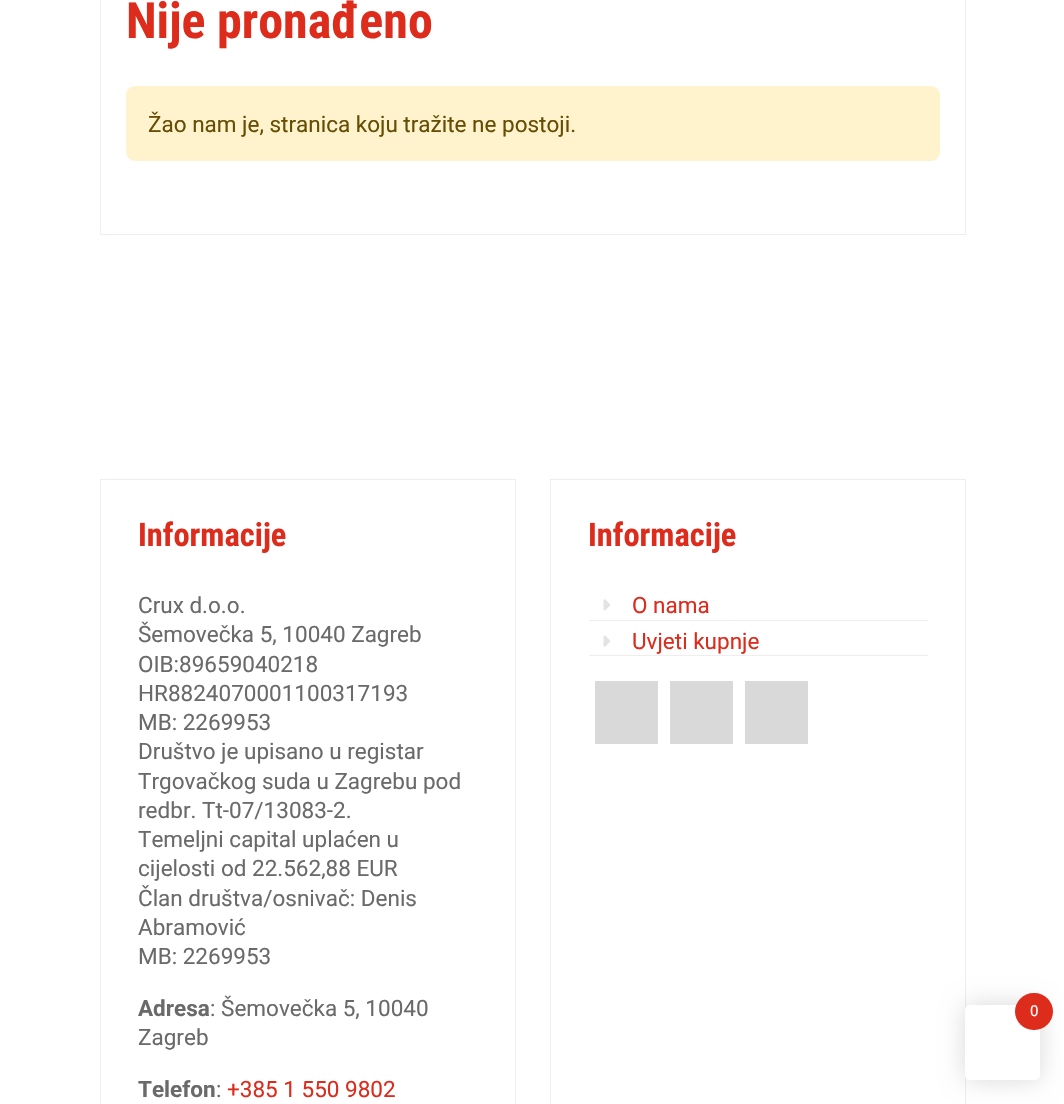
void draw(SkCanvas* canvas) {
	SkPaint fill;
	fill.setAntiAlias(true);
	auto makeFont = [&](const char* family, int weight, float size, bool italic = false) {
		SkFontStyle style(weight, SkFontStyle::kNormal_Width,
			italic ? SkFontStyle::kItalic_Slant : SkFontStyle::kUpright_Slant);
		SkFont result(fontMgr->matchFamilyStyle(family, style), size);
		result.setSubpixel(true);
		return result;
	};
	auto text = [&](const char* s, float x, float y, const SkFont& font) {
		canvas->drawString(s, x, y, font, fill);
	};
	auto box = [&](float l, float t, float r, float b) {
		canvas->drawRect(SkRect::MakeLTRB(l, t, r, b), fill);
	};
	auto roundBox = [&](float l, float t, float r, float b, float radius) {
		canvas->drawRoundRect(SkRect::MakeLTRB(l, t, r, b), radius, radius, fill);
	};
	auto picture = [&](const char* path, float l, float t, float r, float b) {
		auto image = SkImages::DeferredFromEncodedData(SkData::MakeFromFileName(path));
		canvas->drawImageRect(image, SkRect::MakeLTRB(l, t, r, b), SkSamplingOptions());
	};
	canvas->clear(0xFFFFFFFF);
	fill.setStyle(SkPaint::kStroke_Style);
	fill.setStrokeWidth(1);
	fill.setColor(0xFFF1EDED);
	canvas->drawRect(SkRect::MakeLTRB(100.5f, -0.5f, 965.5f, 234.5f), fill);
	fill.setStyle(SkPaint::kFill_Style);
	fill.setColor(0xFFFFF3CD);
	roundBox(126, 86, 940, 161, 9);
	fill.setStyle(SkPaint::kStroke_Style);
	fill.setColor(0xFFF1EDED);
	canvas->drawRect(SkRect::MakeLTRB(100.5f, 479.5f, 515.5f, 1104.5f), fill);
	canvas->drawRect(SkRect::MakeLTRB(550.5f, 479.5f, 965.5f, 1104.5f), fill);
	fill.setStyle(SkPaint::kFill_Style);
	box(589, 620, 928, 621);
	picture("image0.png", 603, 599, 611, 611);
	box(589, 655, 928, 656);
	picture("image1.png", 603, 635, 610, 647);
	fill.setColor(0xFFD9D9D9);
	box(595, 681, 658, 744);
	box(670, 681, 733, 744);
	box(745, 681, 808, 744);
	fill.setColor(0x26000000);
	fill.setMaskFilter(SkMaskFilter::MakeBlur(kNormal_SkBlurStyle, 12.5f));
	canvas->drawRoundRect(SkRect::MakeLTRB(965, 1005, 1040, 1080), 5, 5, fill);
	fill.setMaskFilter(nullptr);
	fill.setColor(0xFFFFFFFF);
	roundBox(965, 1005, 1040, 1080, 5);
	fill.setColor(0xFFDD2B1C);
	roundBox(1015, 993, 1053, 1030, 18.5f);
	auto font1 = makeFont("Roboto Condensed", 700, 50);
	text("Nije pronađeno", 126, 38, font1);
	auto font2 = makeFont("Roboto", 400, 22.5f);
	fill.setColor(0xFF664D03);
	text("Žao nam je, stranica koju tražite ne postoji.", 148, 132, font2);
	auto font3 = makeFont("Roboto Condensed", 700, 32.5f);
	fill.setColor(0xFFDD2B1C);
	text("Informacije", 138, 546, font3);
	fill.setColor(0xFF6A6A6A);
	text("Crux d.o.o.", 138, 613, font2);
	text("Šemovečka 5, 10040 Zagreb", 138, 642, font2);
	text("OIB:89659040218", 138, 672, font2);
	text("HR8824070001100317193", 138, 701, font2);
	text("MB: 2269953", 138, 730, font2);
	text("Društvo je upisano u registar", 138, 759, font2);
	text("Trgovačkog suda u Zagrebu pod", 138, 789, font2);
	text("redbr. Tt-07/13083-2.", 138, 818, font2);
	text("Temeljni capital uplaćen u", 138, 847, font2);
	text("cijelosti od 22.562,88 EUR", 138, 876, font2);
	text("Član društva/osnivač: Denis", 138, 906, font2);
	text("Abramović", 138, 935, font2);
	text("MB: 2269953", 138, 964, font2);
	auto font4 = makeFont("Roboto", 700, 22.5f);
	text("Adresa", 138, 1016, font4);
	text(": Šemovečka 5, 10040", 210, 1016, font2);
	text("Zagreb", 138, 1045, font2);
	text("Telefon", 138, 1097, font4);
	text(":", 216, 1097, font2);
	fill.setColor(0xFFDD2B1C);
	text("+385 1 550 9802", 227, 1097, font2);
	text("Informacije", 588, 546, font3);
	text("O nama", 632, 613, font2);
	text("Uvjeti kupnje", 632, 649, font2);
	auto font5 = makeFont("Roboto", 400, 15);
	fill.setColor(0xFFFFFFFF);
	text("0", 1030, 1016, font5);
}
